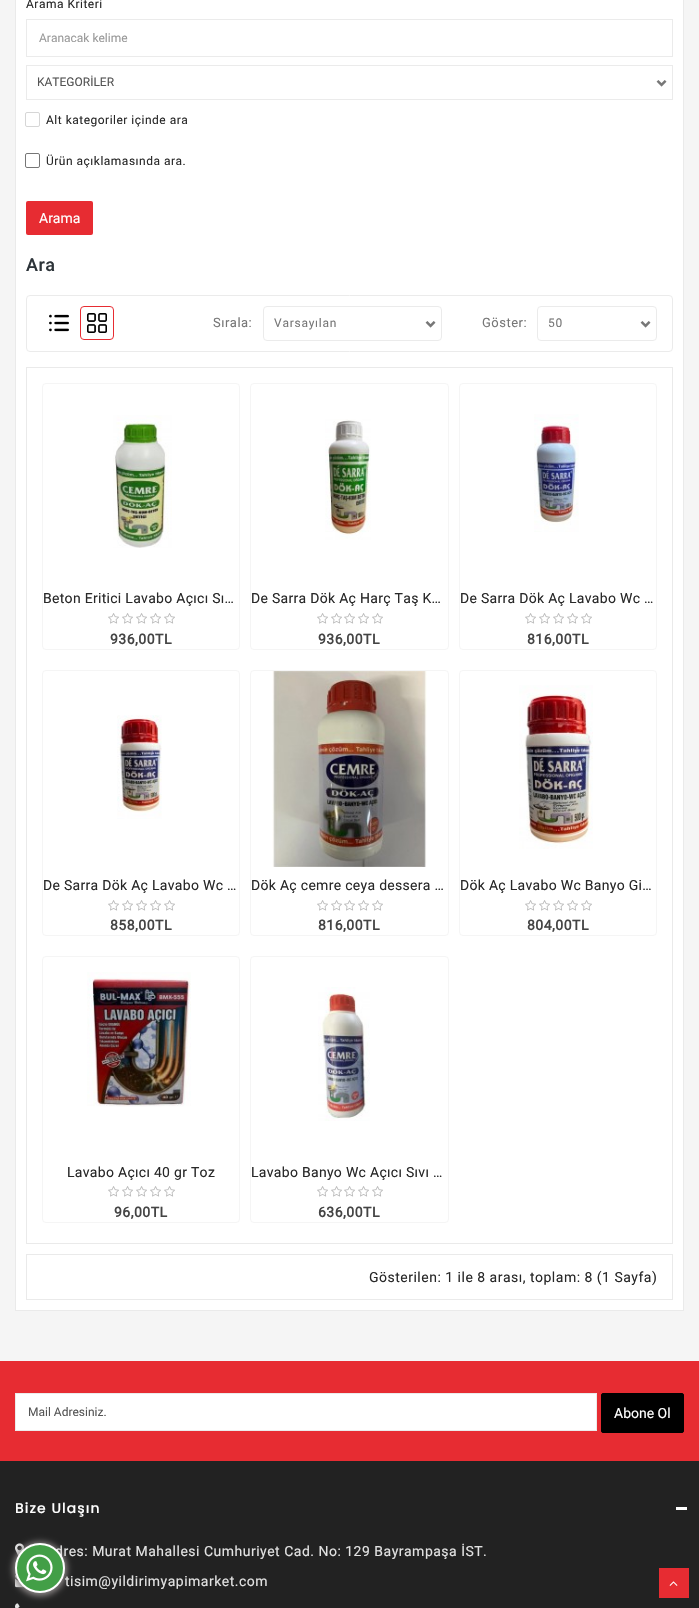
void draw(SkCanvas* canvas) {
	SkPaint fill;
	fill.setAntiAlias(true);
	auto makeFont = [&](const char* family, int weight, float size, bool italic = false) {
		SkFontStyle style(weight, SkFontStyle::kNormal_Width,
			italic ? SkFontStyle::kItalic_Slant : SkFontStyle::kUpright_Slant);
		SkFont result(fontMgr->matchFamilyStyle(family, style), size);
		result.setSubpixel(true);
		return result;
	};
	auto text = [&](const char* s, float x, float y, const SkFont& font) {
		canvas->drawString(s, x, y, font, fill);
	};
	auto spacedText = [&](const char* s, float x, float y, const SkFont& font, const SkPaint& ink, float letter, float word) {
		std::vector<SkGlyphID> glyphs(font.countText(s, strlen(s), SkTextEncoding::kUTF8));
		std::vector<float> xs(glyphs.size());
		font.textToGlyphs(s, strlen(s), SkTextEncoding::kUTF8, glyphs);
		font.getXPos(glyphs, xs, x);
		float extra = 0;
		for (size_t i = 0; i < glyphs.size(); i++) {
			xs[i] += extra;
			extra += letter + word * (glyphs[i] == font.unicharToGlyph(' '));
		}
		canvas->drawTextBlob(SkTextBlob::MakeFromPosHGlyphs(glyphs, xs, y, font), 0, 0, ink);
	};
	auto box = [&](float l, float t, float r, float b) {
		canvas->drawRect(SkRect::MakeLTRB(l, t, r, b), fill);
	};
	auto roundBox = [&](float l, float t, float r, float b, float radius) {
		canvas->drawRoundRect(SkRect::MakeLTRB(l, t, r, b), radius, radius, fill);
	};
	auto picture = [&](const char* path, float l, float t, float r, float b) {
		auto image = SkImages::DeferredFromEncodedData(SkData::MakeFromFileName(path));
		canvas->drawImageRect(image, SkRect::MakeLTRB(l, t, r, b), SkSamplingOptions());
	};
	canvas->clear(0xFFF5F5F5);
	fill.setColor(0xFFFFFFFF);
	canvas->drawRect(SkRect::MakeLTRB(15.5f, -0.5f, 683.5f, 1310.5f), fill);
	fill.setStyle(SkPaint::kStroke_Style);
	fill.setStrokeWidth(1);
	fill.setColor(0xFFEAEAEA);
	canvas->drawRect(SkRect::MakeLTRB(15.5f, -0.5f, 683.5f, 1310.5f), fill);
	fill.setColor(0xFFEBEBEB);
	canvas->drawRect(SkRect::MakeLTRB(26.5f, 19.5f, 672.5f, 56.5f), fill);
	picture("image0.png", 656, 80, 667, 87);
	canvas->drawRect(SkRect::MakeLTRB(26.5f, 65.5f, 672.5f, 99.5f), fill);
	fill.setColor(0xFFD6D6D6);
	canvas->drawRoundRect(SkRect::MakeLTRB(25.5f, 112.5f, 39.5f, 126.5f), 1.5f, 1.5f, fill);
	fill.setColor(0xFF767676);
	canvas->drawRoundRect(SkRect::MakeLTRB(25.5f, 153.5f, 39.5f, 167.5f), 1.5f, 1.5f, fill);
	fill.setStyle(SkPaint::kFill_Style);
	fill.setColor(0xFFE72C32);
	roundBox(26, 201, 93, 235, 2);
	fill.setStyle(SkPaint::kStroke_Style);
	fill.setColor(0xFFEBEBEB);
	canvas->drawRoundRect(SkRect::MakeLTRB(26.5f, 295.5f, 672.5f, 351.5f), 3.5f, 3.5f, fill);
	picture("image1.png", 49, 314, 69, 332);
	fill.setColor(0xFFE72C32);
	canvas->drawRoundRect(SkRect::MakeLTRB(80.5f, 306.5f, 113.5f, 339.5f), 3.5f, 3.5f, fill);
	picture("image2.png", 87, 313, 107, 333);
	picture("image0.png", 425, 321, 436, 328);
	fill.setColor(0xFFEBEBEB);
	canvas->drawRoundRect(SkRect::MakeLTRB(263.5f, 306.5f, 441.5f, 340.5f), 3.5f, 3.5f, fill);
	picture("image0.png", 640, 321, 651, 328);
	canvas->drawRoundRect(SkRect::MakeLTRB(537.5f, 306.5f, 656.5f, 340.5f), 3.5f, 3.5f, fill);
	fill.setColor(0xFFEAEAEA);
	canvas->drawRect(SkRect::MakeLTRB(26.5f, 367.5f, 672.5f, 1243.5f), fill);
	fill.setColor(0xFFF5F5F5);
	canvas->drawRoundRect(SkRect::MakeLTRB(42.5f, 383.5f, 239.5f, 649.5f), 3.5f, 3.5f, fill);
	picture("image3.png", 113, 415, 172, 548);
	picture("image4.png", 108, 613, 119, 624);
	picture("image4.png", 122, 613, 133, 624);
	picture("image4.png", 136, 613, 147, 624);
	picture("image4.png", 150, 613, 161, 624);
	picture("image4.png", 164, 613, 175, 624);
	canvas->drawRoundRect(SkRect::MakeLTRB(250.5f, 383.5f, 448.5f, 649.5f), 3.5f, 3.5f, fill);
	picture("image5.png", 325, 419, 371, 540);
	picture("image4.png", 317, 613, 328, 624);
	picture("image4.png", 331, 613, 342, 624);
	picture("image4.png", 344, 613, 355, 624);
	picture("image4.png", 358, 613, 369, 624);
	picture("image4.png", 372, 613, 383, 624);
	canvas->drawRoundRect(SkRect::MakeLTRB(459.5f, 383.5f, 656.5f, 649.5f), 3.5f, 3.5f, fill);
	picture("image6.png", 534, 414, 579, 532);
	picture("image4.png", 525, 613, 536, 624);
	picture("image4.png", 539, 613, 550, 624);
	picture("image4.png", 553, 613, 564, 624);
	picture("image4.png", 567, 613, 578, 624);
	picture("image4.png", 581, 613, 592, 624);
	canvas->drawRoundRect(SkRect::MakeLTRB(42.5f, 670.5f, 239.5f, 935.5f), 3.5f, 3.5f, fill);
	picture("image7.png", 117, 715, 162, 819);
	picture("image4.png", 108, 900, 119, 911);
	picture("image4.png", 122, 900, 133, 911);
	picture("image4.png", 136, 900, 147, 911);
	picture("image4.png", 150, 900, 161, 911);
	picture("image4.png", 164, 900, 175, 911);
	canvas->drawRoundRect(SkRect::MakeLTRB(250.5f, 670.5f, 448.5f, 935.5f), 3.5f, 3.5f, fill);
	picture("image8.png", 272, 671, 427, 867);
	picture("image4.png", 317, 900, 328, 911);
	picture("image4.png", 331, 900, 342, 911);
	picture("image4.png", 344, 900, 355, 911);
	picture("image4.png", 358, 900, 369, 911);
	picture("image4.png", 372, 900, 383, 911);
	canvas->drawRoundRect(SkRect::MakeLTRB(459.5f, 670.5f, 656.5f, 935.5f), 3.5f, 3.5f, fill);
	picture("image9.png", 519, 685, 593, 849);
	picture("image4.png", 525, 900, 536, 911);
	picture("image4.png", 539, 900, 550, 911);
	picture("image4.png", 553, 900, 564, 911);
	picture("image4.png", 567, 900, 578, 911);
	picture("image4.png", 581, 900, 592, 911);
	canvas->drawRoundRect(SkRect::MakeLTRB(42.5f, 956.5f, 239.5f, 1222.5f), 3.5f, 3.5f, fill);
	picture("image10.png", 87, 972, 191, 1107);
	picture("image4.png", 108, 1186, 119, 1197);
	picture("image4.png", 122, 1186, 133, 1197);
	picture("image4.png", 136, 1186, 147, 1197);
	picture("image4.png", 150, 1186, 161, 1197);
	picture("image4.png", 164, 1186, 175, 1197);
	canvas->drawRoundRect(SkRect::MakeLTRB(250.5f, 956.5f, 448.5f, 1222.5f), 3.5f, 3.5f, fill);
	picture("image11.png", 318, 987, 370, 1121);
	picture("image4.png", 317, 1186, 328, 1197);
	picture("image4.png", 331, 1186, 342, 1197);
	picture("image4.png", 344, 1186, 355, 1197);
	picture("image4.png", 358, 1186, 369, 1197);
	picture("image4.png", 372, 1186, 383, 1197);
	fill.setColor(0xFFEAEAEA);
	canvas->drawRect(SkRect::MakeLTRB(26.5f, 1254.5f, 672.5f, 1299.5f), fill);
	fill.setStyle(SkPaint::kFill_Style);
	fill.setColor(0xFF222222);
	box(0, 1461, 699, 1608);
	fill.setColor(0xFFE72C32);
	box(0, 1361, 699, 1461);
	fill.setColor(0xFFFFFFFF);
	canvas->drawRect(SkRect::MakeLTRB(15.5f, 1393.5f, 596.5f, 1430.5f), fill);
	fill.setStyle(SkPaint::kStroke_Style);
	fill.setColor(0xFFEBEBEB);
	canvas->drawRect(SkRect::MakeLTRB(15.5f, 1393.5f, 596.5f, 1430.5f), fill);
	fill.setStyle(SkPaint::kFill_Style);
	fill.setColor(0xFF000000);
	canvas->drawRoundRect(SkRect::MakeLTRB(601.5f, 1393.5f, 683.5f, 1432.5f), 1.5f, 1.5f, fill);
	fill.setStyle(SkPaint::kStroke_Style);
	canvas->drawRoundRect(SkRect::MakeLTRB(601.5f, 1393.5f, 683.5f, 1432.5f), 1.5f, 1.5f, fill);
	fill.setStyle(SkPaint::kFill_Style);
	fill.setColor(0xFFFFFFFF);
	box(676, 1507, 687, 1510);
	picture("image12.png", 15, 1543, 25, 1556);
	picture("image13.png", 15, 1574, 25, 1588);
	picture("image14.png", 15, 1603, 20, 1608);
	fill.setColor(0xFF8D8888);
	fill.setMaskFilter(SkMaskFilter::MakeBlur(kNormal_SkBlurStyle, 3));
	canvas->drawRoundRect(SkRect::MakeLTRB(13, 1542, 67, 1596), 27, 27, fill);
	fill.setMaskFilter(nullptr);
	fill.setColor(0xFFE72C32);
	box(659, 1568, 689, 1598);
	picture("image16.png", 669, 1581, 678, 1586);
	auto font1 = makeFont("Roboto", 400, 12);
	fill.setColor(0xFF282828);
	spacedText("Arama Kriteri", 26, 8, font1, fill, 0.5f, 0);
	fill.setColor(0xFF999999);
	text("Aranacak kelime", 39, 42, font1);
	fill.setColor(0xFF555555);
	text("KATEGORİLER", 37, 86, font1);
	fill.setColor(0xFF282828);
	spacedText("Alt kategoriler içinde ara", 46, 124, font1, fill, 0.5f, 0);
	spacedText("Ürün açıklamasında ara.", 46, 165, font1, fill, 0.5f, 0);
	auto font2 = makeFont("Roboto", 400, 14);
	fill.setColor(0xFFFFFFFF);
	text("Arama", 39, 223, font2);
	auto font3 = makeFont("Roboto", 500, 18);
	fill.setColor(0xFF2D3439);
	spacedText("Ara", 26, 271, font3, fill, 0.5f, 0);
	auto font4 = makeFont("Roboto", 400, 13);
	fill.setColor(0xFF777777);
	spacedText("Sırala:", 213, 327, font4, fill, 0.5f, 0);
	spacedText("Varsayılan", 274, 327, font1, fill, 0.75f, 0);
	spacedText("Göster:", 482, 327, font4, fill, 0.5f, 0);
	spacedText("50", 548, 327, font1, fill, 0.75f, 0);
	fill.setColor(0xFF282828);
	spacedText("Beton Eritici Lavabo Açıcı Sı…", 43, 603, font2, fill, 0.3f, 0);
	auto font5 = makeFont("Roboto", 700, 14);
	fill.setColor(0xFF444444);
	spacedText("936,00TL", 110, 644, font5, fill, 0.5f, 0);
	fill.setColor(0xFF282828);
	spacedText("De Sarra Dök Aç Harç Taş K…", 251, 603, font2, fill, 0.3f, 0);
	fill.setColor(0xFF444444);
	spacedText("936,00TL", 318, 644, font5, fill, 0.5f, 0);
	fill.setColor(0xFF282828);
	spacedText("De Sarra Dök Aç Lavabo Wc …", 460, 603, font2, fill, 0.3f, 0);
	fill.setColor(0xFF444444);
	spacedText("816,00TL", 527, 644, font5, fill, 0.5f, 0);
	fill.setColor(0xFF282828);
	spacedText("De Sarra Dök Aç Lavabo Wc …", 43, 890, font2, fill, 0.3f, 0);
	fill.setColor(0xFF444444);
	spacedText("858,00TL", 110, 930, font5, fill, 0.5f, 0);
	fill.setColor(0xFF282828);
	spacedText("Dök Aç cemre ceya dessera …", 251, 890, font2, fill, 0.3f, 0);
	fill.setColor(0xFF444444);
	spacedText("816,00TL", 318, 930, font5, fill, 0.5f, 0);
	fill.setColor(0xFF282828);
	spacedText("Dök Aç Lavabo Wc Banyo Gi…", 460, 890, font2, fill, 0.3f, 0);
	fill.setColor(0xFF444444);
	spacedText("804,00TL", 527, 930, font5, fill, 0.5f, 0);
	fill.setColor(0xFF282828);
	spacedText("Lavabo Açıcı 40 gr Toz", 67, 1177, font2, fill, 0.3f, 0);
	fill.setColor(0xFF444444);
	spacedText("96,00TL", 114, 1217, font5, fill, 0.5f, 0);
	fill.setColor(0xFF282828);
	spacedText("Lavabo Banyo Wc Açıcı Sıvı …", 251, 1177, font2, fill, 0.3f, 0);
	fill.setColor(0xFF444444);
	spacedText("636,00TL", 318, 1217, font5, fill, 0.5f, 0);
	fill.setColor(0xFF282828);
	spacedText("Gösterilen: 1 ile 8 arası, toplam: 8 (1 Sayfa)", 369, 1282, font2, fill, 0.5f, 0);
	fill.setColor(0xFF555555);
	text("Mail Adresiniz.", 28, 1416, font1);
	fill.setColor(0xFFFFFFFF);
	text("Abone Ol", 614, 1418, font2);
	auto font6 = makeFont("Poppins", 500, 14);
	spacedText("Bize Ulaşın", 15, 1513, font6, fill, 1, 0);
	fill.setColor(0xFFE2E2E2);
	spacedText("dres: Murat Mahallesi Cumhuriyet Cad. No: 129 Bayrampaşa İST.", 55, 1556, font2, fill, 0.5f, 0);
	spacedText("tisim@yildirimyapimarket.com", 65, 1586, font2, fill, 0.5f, 0);
	fill.setColor(0xFF439F47);
	canvas->drawCircle(40, 1568, 24, fill);
	fill.setStyle(SkPaint::kStroke_Style);
	fill.setStrokeWidth(2);
	fill.setColor(0xFFFFFFFF);
	canvas->drawCircle(40, 1568, 24, fill);
	picture("image15.png", 26, 1554, 53, 1582);
}
